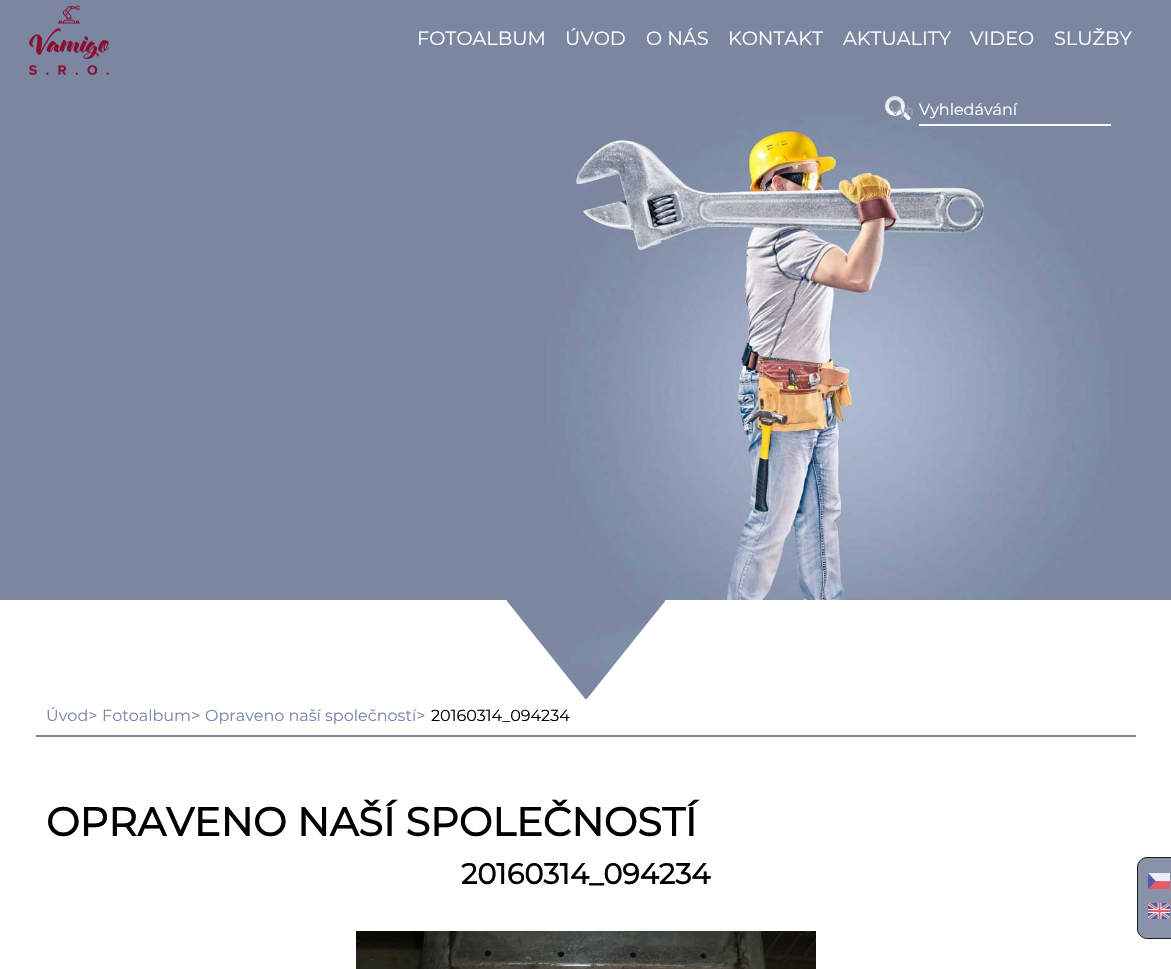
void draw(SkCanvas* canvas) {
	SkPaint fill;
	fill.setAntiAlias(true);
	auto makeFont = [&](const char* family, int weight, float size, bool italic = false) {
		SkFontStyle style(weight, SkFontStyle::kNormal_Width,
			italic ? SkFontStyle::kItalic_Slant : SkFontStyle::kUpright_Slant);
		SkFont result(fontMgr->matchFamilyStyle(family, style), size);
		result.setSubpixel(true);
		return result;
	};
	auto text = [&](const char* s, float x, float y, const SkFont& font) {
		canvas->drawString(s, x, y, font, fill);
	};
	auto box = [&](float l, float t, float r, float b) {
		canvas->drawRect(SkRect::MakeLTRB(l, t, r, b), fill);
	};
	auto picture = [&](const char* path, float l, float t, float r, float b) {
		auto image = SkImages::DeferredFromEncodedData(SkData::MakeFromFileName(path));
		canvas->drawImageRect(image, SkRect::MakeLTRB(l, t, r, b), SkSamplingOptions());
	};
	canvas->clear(0xFFFFFFFF);
	picture("image3.png", 0, 80, 1171, 699);
	fill.setStyle(SkPaint::kStroke_Style);
	fill.setStrokeWidth(4);
	fill.setColor(0xFFFFFFFF);
	canvas->drawCircle(895, 106, 8, fill);
	fill.setStyle(SkPaint::kFill_Style);
	canvas->drawPath(SkPathBuilder().moveTo(898.5f, 111).lineTo(901.5f, 108).lineTo(910.5f, 117.5f).cubicTo(911, 119.5f, 908.5f, 121, 907, 119.5f).close().detach(), fill);
	box(919, 124, 1111, 126);
	fill.setColor(0xFF7B87A1);
	fill.setMaskFilter(SkMaskFilter::MakeBlur(kNormal_SkBlurStyle, 26));
	canvas->drawRect(SkRect::MakeLTRB(22, 22, 1169, 78), fill);
	fill.setMaskFilter(nullptr);
	box(0, 0, 1171, 80);
	picture("image0.png", 29, 5, 109, 75);
	fill.setColor(0xFF8893AA);
	canvas->drawPath(SkPathBuilder().moveTo(1147, 857.5f).lineTo(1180.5f, 857.5f).lineTo(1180.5f, 938.5f).lineTo(1147, 938.5f).cubicTo(1142, 938.5f, 1137.5f, 934, 1137.5f, 929).lineTo(1137.5f, 867).cubicTo(1137.5f, 862, 1142, 857.5f, 1147, 857.5f).close().detach(), fill);
	fill.setStyle(SkPaint::kStroke_Style);
	fill.setStrokeWidth(1);
	fill.setColor(0xFF1A1A1A);
	canvas->drawPath(SkPathBuilder().moveTo(1147, 857.5f).lineTo(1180.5f, 857.5f).lineTo(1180.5f, 938.5f).lineTo(1147, 938.5f).cubicTo(1142, 938.5f, 1137.5f, 934, 1137.5f, 929).lineTo(1137.5f, 867).cubicTo(1137.5f, 862, 1142, 857.5f, 1147, 857.5f).close().detach(), fill);
	picture("image1.png", 1148, 873, 1170, 889);
	picture("image2.png", 1148, 903, 1170, 919);
	fill.setStyle(SkPaint::kFill_Style);
	fill.setColor(0xFFFFFFFF);
	box(0, 600, 507, 699);
	canvas->drawPath(SkPathBuilder().moveTo(666, 600).lineTo(666, 700).lineTo(586, 700).close().detach(), fill);
	canvas->drawPath(SkPathBuilder().moveTo(506, 700).lineTo(506, 600).lineTo(586, 700).close().detach(), fill);
	box(665, 600, 1171, 699);
	fill.setColor(0xFF7B87A1);
	box(36, 735, 1136, 737);
	picture("image4.png", 356, 931, 816, 969);
	auto font1 = makeFont("Montserrat", 100, 19.25f);
	fill.setColor(0xFFFFFFFF);
	text("FOTOALBUM", 417, 45, font1);
	text("ÚVOD", 565, 45, font1);
	text("O NÁS", 646, 45, font1);
	text("KONTAKT", 728, 45, font1);
	text("AKTUALITY", 843, 45, font1);
	text("VIDEO", 970, 45, font1);
	text("SLUŽBY", 1054, 45, font1);
	auto font2 = makeFont("Liberation Sans", 400, 13);
	fill.setColor(0xFF9CA6B9);
	text("Vyh", 891, 115, font2);
	auto font3 = makeFont("Montserrat", 100, 16);
	fill.setColor(0xFFFFFFFF);
	text("Vyhledávání", 919, 115, font3);
	fill.setColor(0xFF7B87A1);
	text("Úvod>", 46, 721, font3);
	text("Fotoalbum>", 102, 721, font3);
	text("Opraveno naší společností>", 205, 721, font3);
	fill.setColor(0xFF000000);
	text("20160314_094234", 431, 721, font3);
	auto font4 = makeFont("Montserrat", 700, 40);
	text("OPRAVENO NAŠÍ SPOLEČNOSTÍ", 46, 836, font4);
	auto font5 = makeFont("Montserrat", 700, 28.75f);
	text("20160314_094234", 461, 884, font5);
}
